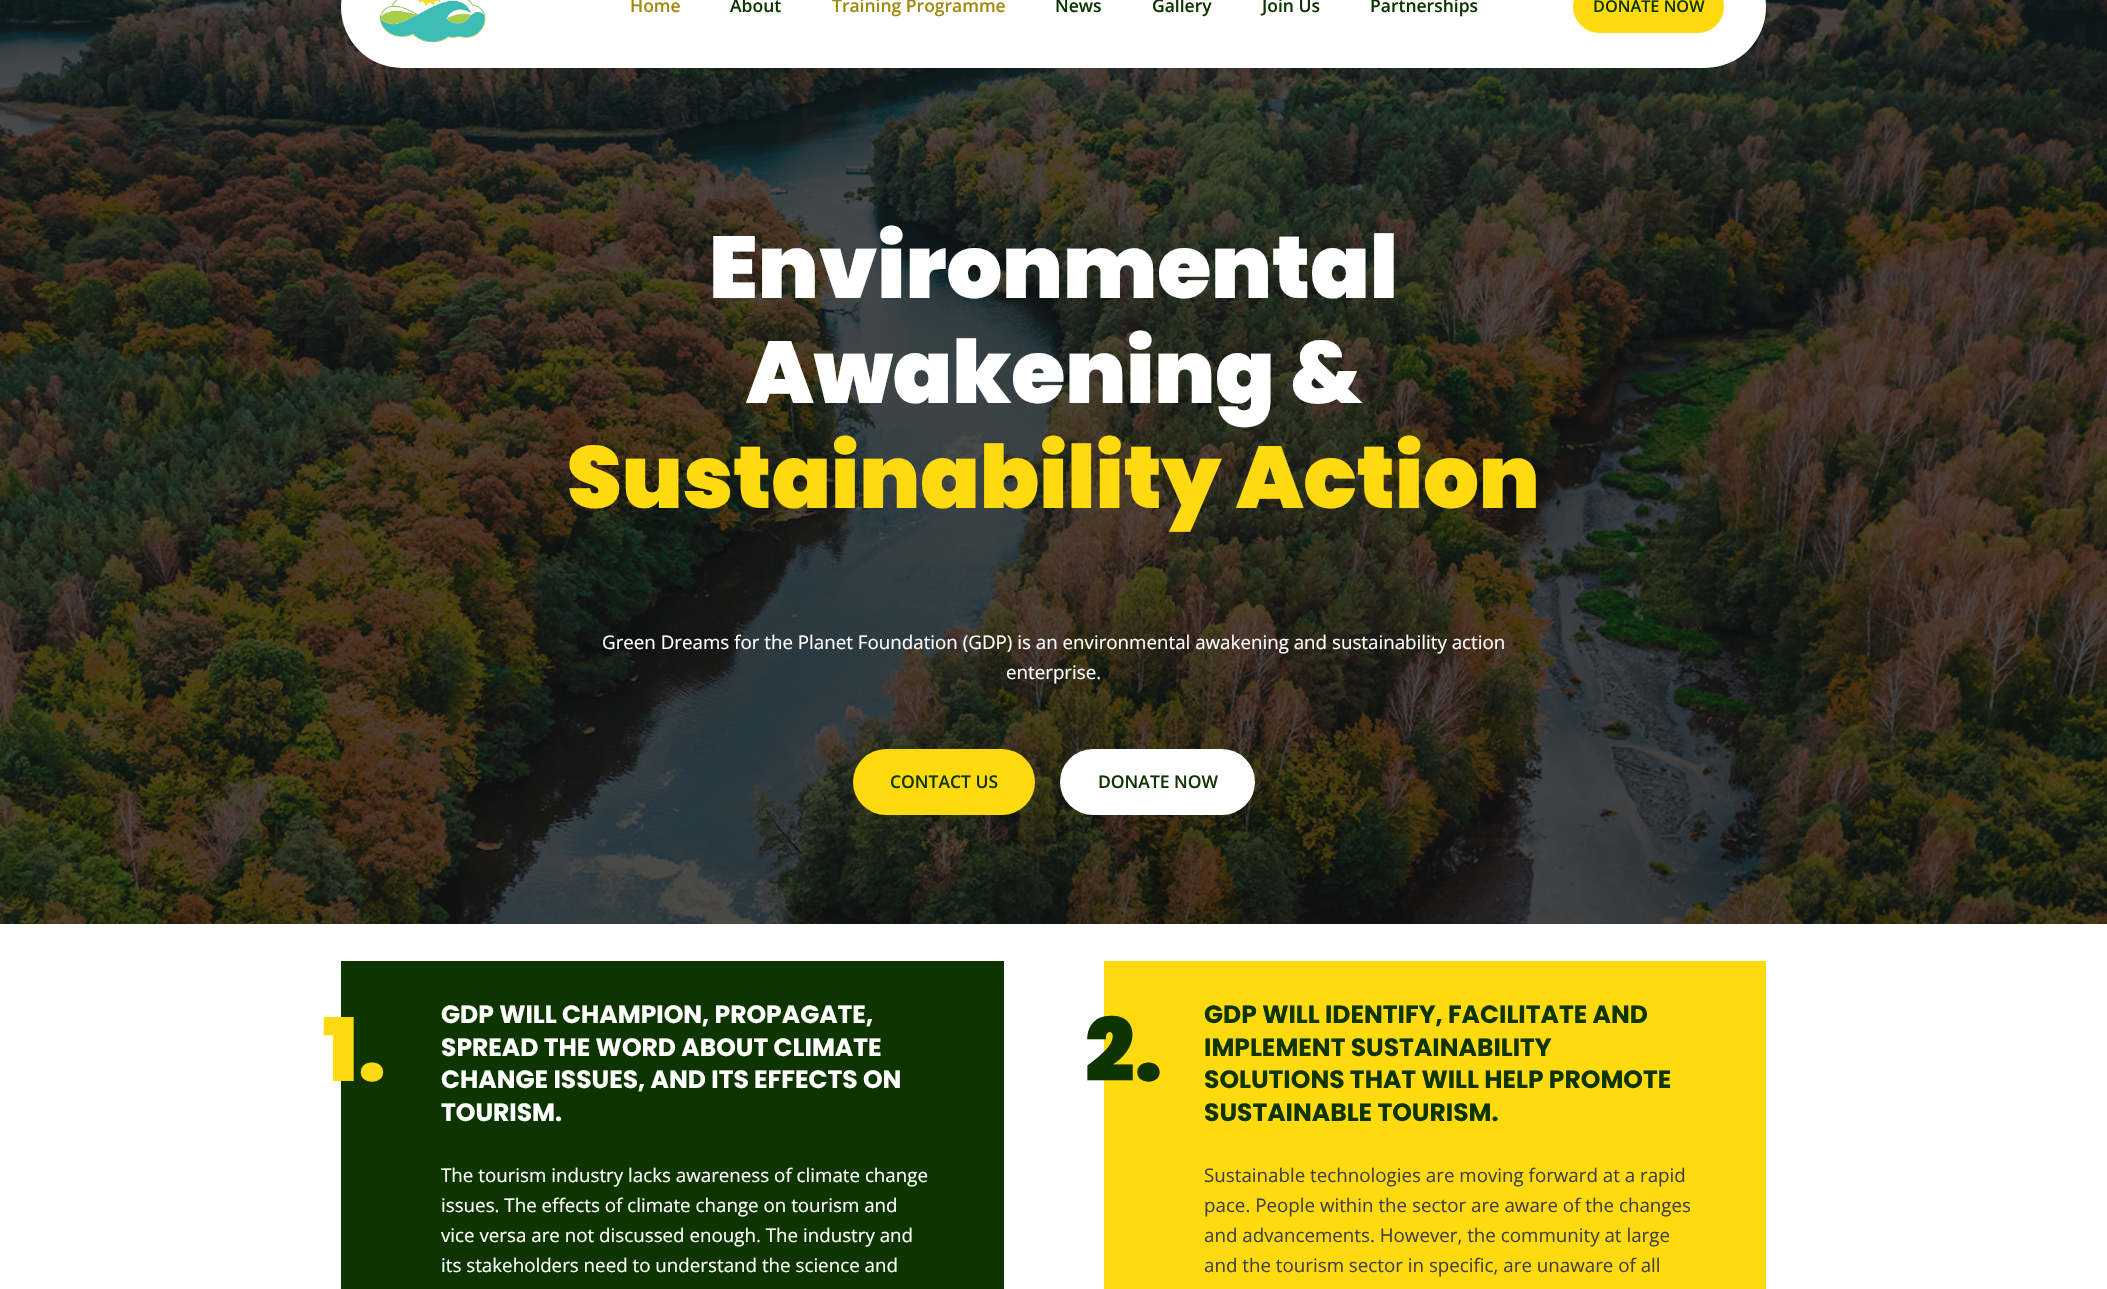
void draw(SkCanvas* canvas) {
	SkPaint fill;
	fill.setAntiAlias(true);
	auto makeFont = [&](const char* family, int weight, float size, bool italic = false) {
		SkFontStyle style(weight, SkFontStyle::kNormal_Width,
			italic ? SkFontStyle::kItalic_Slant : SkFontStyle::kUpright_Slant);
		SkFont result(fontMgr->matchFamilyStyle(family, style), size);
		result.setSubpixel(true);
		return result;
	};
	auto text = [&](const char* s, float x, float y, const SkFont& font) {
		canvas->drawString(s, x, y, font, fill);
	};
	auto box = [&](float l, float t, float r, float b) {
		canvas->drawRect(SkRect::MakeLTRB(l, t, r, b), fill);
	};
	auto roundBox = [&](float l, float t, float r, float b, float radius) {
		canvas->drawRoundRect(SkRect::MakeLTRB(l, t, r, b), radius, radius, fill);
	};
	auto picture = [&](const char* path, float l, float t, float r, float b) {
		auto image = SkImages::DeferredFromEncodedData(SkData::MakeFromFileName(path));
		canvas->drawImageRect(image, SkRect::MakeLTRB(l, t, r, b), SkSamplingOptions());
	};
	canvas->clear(0xFFFFFFFF);
	picture("image1.png", 0, 0, 2107, 924);
	fill.setColor(0xFFFFFFFF);
	roundBox(341, -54, 1766, 68, 61);
	picture("image0.png", 379, 0, 486, 43);
	fill.setColor(0xFFFFDA0F);
	roundBox(1573, -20, 1724, 33, 26.5f);
	roundBox(853, 749, 1035, 815, 33);
	fill.setColor(0xFFFFFFFF);
	roundBox(1060, 749, 1255, 815, 33);
	fill.setColor(0xFF0E3500);
	box(341, 961, 1004, 1289);
	fill.setColor(0xFFFFDA0F);
	box(1104, 961, 1766, 1289);
	auto font1 = makeFont("Open Sans", 600, 17.5f);
	fill.setColor(0xFFA18A10);
	text("Home", 630, 12, font1);
	fill.setColor(0xFF0E3500);
	text("About", 730, 12, font1);
	fill.setColor(0xFFA18A10);
	text("Training Programme", 832, 12, font1);
	fill.setColor(0xFF0E3500);
	text("News", 1055, 12, font1);
	text("Gallery", 1152, 12, font1);
	text("Join Us", 1262, 12, font1);
	text("Partnerships", 1370, 12, font1);
	auto font2 = makeFont("Open Sans", 600, 16.25f);
	text("DONATE NOW", 1593, 12, font2);
	auto font3 = makeFont("Poppins", 900, 87.5f);
	fill.setColor(0xFFFFFFFF);
	text("Environmental", 709, 298, font3);
	text("Awakening &", 746, 403, font3);
	fill.setColor(0xFFFFDA0F);
	text("Sustainability Action", 567, 508, font3);
	auto font4 = makeFont("Open Sans", 400, 18.75f);
	fill.setColor(0xFFFFFFFF);
	text("Green Dreams for the Planet Foundation (GDP) is an environmental awakening and sustainability action", 602, 649, font4);
	text("enterprise.", 1006, 679, font4);
	fill.setColor(0xFF0E3500);
	text("CONTACT US", 890, 788, font1);
	text("DONATE NOW", 1098, 788, font1);
	fill.setColor(0xFFFFDA0F);
	text("1.", 323, 1081, font3);
	auto font5 = makeFont("Poppins", 700, 25);
	fill.setColor(0xFFFFFFFF);
	text("GDP WILL CHAMPION, PROPAGATE,", 441, 1023, font5);
	text("SPREAD THE WORD ABOUT CLIMATE", 441, 1056, font5);
	text("CHANGE ISSUES, AND ITS EFFECTS ON", 441, 1088, font5);
	text("TOURISM.", 441, 1121, font5);
	text("The tourism industry lacks awareness of climate change", 441, 1182, font4);
	text("issues. The effects of climate change on tourism and", 441, 1212, font4);
	text("vice versa are not discussed enough. The industry and", 441, 1242, font4);
	text("its stakeholders need to understand the science and", 441, 1272, font4);
	fill.setColor(0xFF0E3500);
	text("2.", 1085, 1081, font3);
	text("GDP WILL IDENTIFY, FACILITATE AND", 1204, 1023, font5);
	text("IMPLEMENT SUSTAINABILITY", 1204, 1056, font5);
	text("SOLUTIONS THAT WILL HELP PROMOTE", 1204, 1088, font5);
	text("SUSTAINABLE TOURISM.", 1204, 1121, font5);
	fill.setColor(0xFF414141);
	text("Sustainable technologies are moving forward at a rapid", 1204, 1182, font4);
	text("pace. People within the sector are aware of the changes", 1204, 1212, font4);
	text("and advancements. However, the community at large", 1204, 1242, font4);
	text("and the tourism sector in specific, are unaware of all", 1204, 1272, font4);
}
